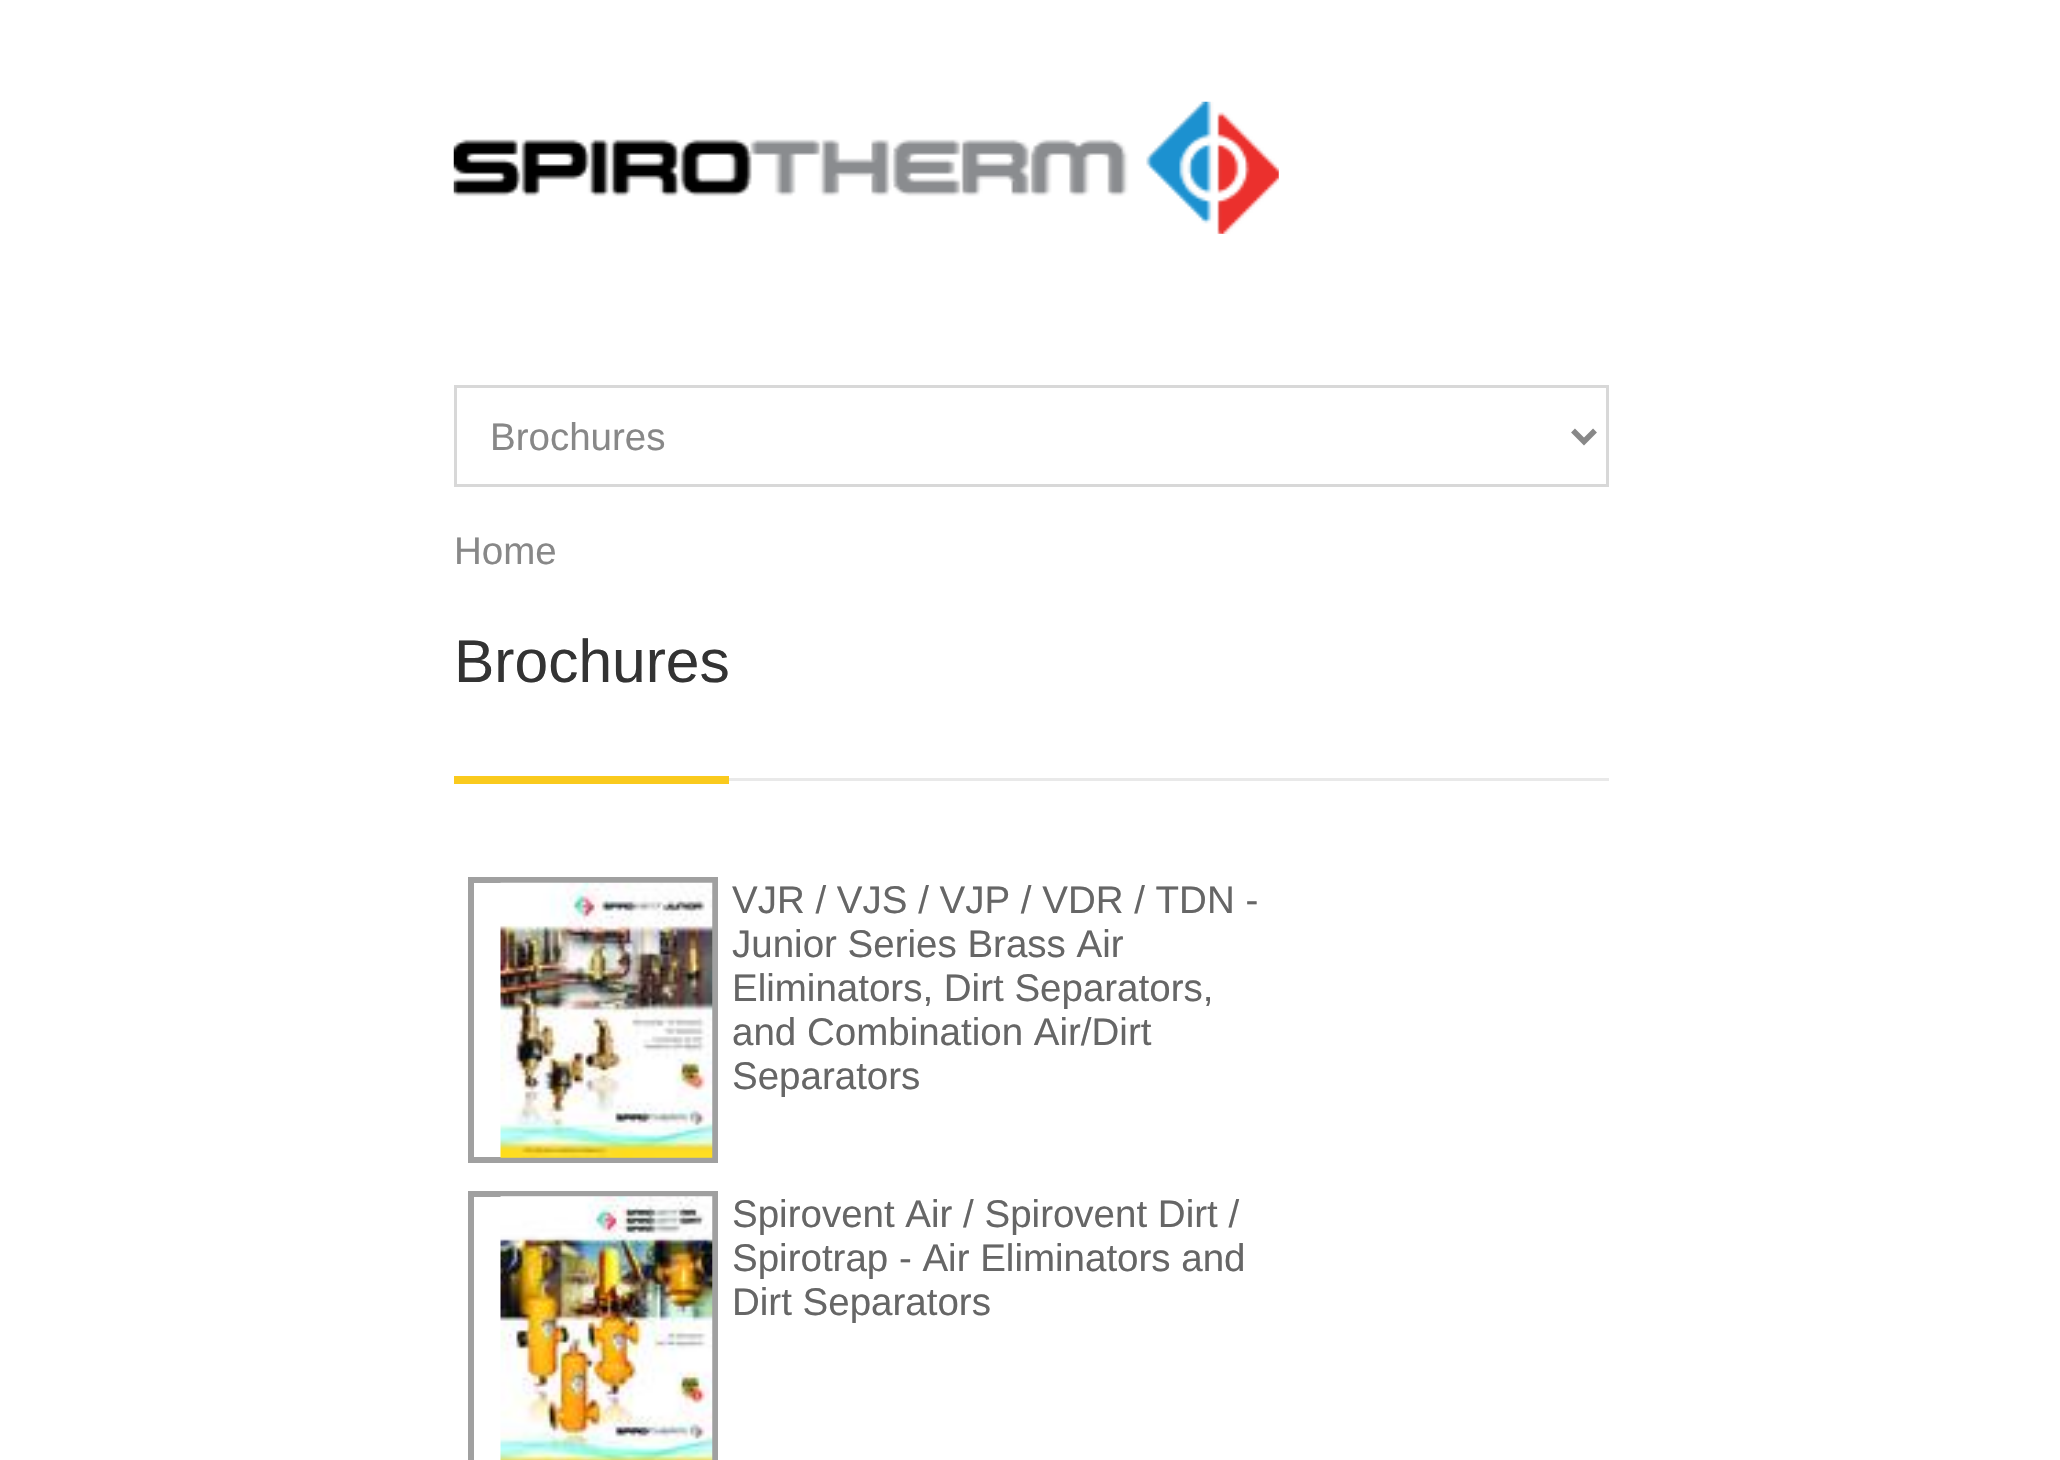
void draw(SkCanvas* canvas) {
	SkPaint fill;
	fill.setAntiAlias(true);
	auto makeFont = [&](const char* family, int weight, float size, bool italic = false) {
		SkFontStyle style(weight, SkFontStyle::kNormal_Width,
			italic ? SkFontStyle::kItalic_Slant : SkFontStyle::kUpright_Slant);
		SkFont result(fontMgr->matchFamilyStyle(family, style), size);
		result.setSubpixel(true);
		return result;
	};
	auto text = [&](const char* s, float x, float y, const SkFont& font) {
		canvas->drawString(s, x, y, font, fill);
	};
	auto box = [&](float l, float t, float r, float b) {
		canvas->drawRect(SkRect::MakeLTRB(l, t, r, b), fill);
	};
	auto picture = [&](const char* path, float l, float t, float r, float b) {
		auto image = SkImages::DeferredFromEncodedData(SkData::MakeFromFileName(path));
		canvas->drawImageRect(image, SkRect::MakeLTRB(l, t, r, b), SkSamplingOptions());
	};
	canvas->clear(0xFFFFFFFF);
	picture("image0.png", 453, 101, 1279, 234);
	fill.setStyle(SkPaint::kStroke_Style);
	fill.setStrokeWidth(3);
	fill.setColor(0xFFD8D8D8);
	canvas->drawRect(SkRect::MakeLTRB(455.5f, 386.5f, 1607.5f, 485.5f), fill);
	fill.setStrokeWidth(5.5f);
	fill.setColor(0xFF888888);
	canvas->drawPath(SkPathBuilder().moveTo(1573, 430.5f).lineTo(1584, 441.5f).lineTo(1595, 430.5f).detach(), fill);
	fill.setStyle(SkPaint::kFill_Style);
	fill.setColor(0xFFE9E9E9);
	box(729, 778, 1609, 781);
	fill.setColor(0xFFFACA1D);
	box(454, 776, 729, 784);
	fill.setStyle(SkPaint::kStroke_Style);
	fill.setStrokeWidth(6);
	fill.setColor(0xFFA0A0A0);
	canvas->drawRect(SkRect::MakeLTRB(471, 880, 715, 1160), fill);
	picture("image1.png", 500, 882, 713, 1158);
	canvas->drawRect(SkRect::MakeLTRB(471, 1194, 715, 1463), fill);
	picture("image2.png", 500, 1196, 713, 1460);
	auto font1 = makeFont("Liberation Sans", 400, 38.5f);
	fill.setStyle(SkPaint::kFill_Style);
	fill.setColor(0xFF888888);
	text("Brochures", 490, 450, font1);
	text("Home", 454, 564, font1);
	auto font2 = makeFont("Liberation Sans", 400, 60.5f);
	fill.setColor(0xFF333333);
	text("Brochures", 454, 682, font2);
	fill.setColor(0xFF666666);
	text("VJR / VJS / VJP / VDR / TDN -", 732, 913, font1);
	text("Junior Series Brass Air", 732, 957, font1);
	text("Eliminators, Dirt Separators,", 732, 1001, font1);
	text("and Combination Air/Dirt", 732, 1045, font1);
	text("Separators", 732, 1089, font1);
	text("Spirovent Air / Spirovent Dirt /", 732, 1227, font1);
	text("Spirotrap - Air Eliminators and", 732, 1271, font1);
	text("Dirt Separators", 732, 1315, font1);
}
